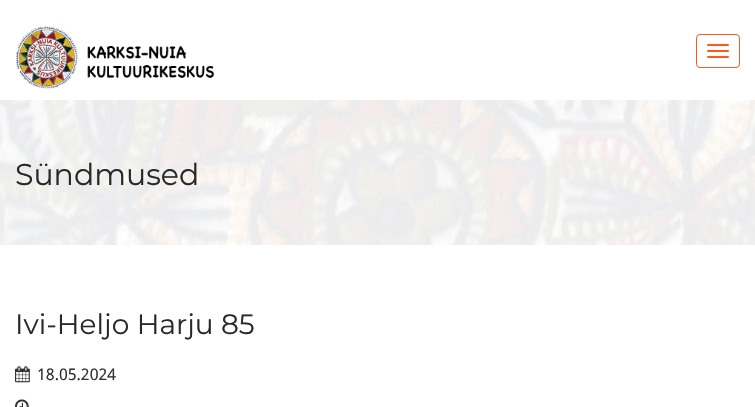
void draw(SkCanvas* canvas) {
	SkPaint fill;
	fill.setAntiAlias(true);
	auto makeFont = [&](const char* family, int weight, float size, bool italic = false) {
		SkFontStyle style(weight, SkFontStyle::kNormal_Width,
			italic ? SkFontStyle::kItalic_Slant : SkFontStyle::kUpright_Slant);
		SkFont result(fontMgr->matchFamilyStyle(family, style), size);
		result.setSubpixel(true);
		return result;
	};
	auto text = [&](const char* s, float x, float y, const SkFont& font) {
		canvas->drawString(s, x, y, font, fill);
	};
	auto roundBox = [&](float l, float t, float r, float b, float radius) {
		canvas->drawRoundRect(SkRect::MakeLTRB(l, t, r, b), radius, radius, fill);
	};
	auto picture = [&](const char* path, float l, float t, float r, float b) {
		auto image = SkImages::DeferredFromEncodedData(SkData::MakeFromFileName(path));
		canvas->drawImageRect(image, SkRect::MakeLTRB(l, t, r, b), SkSamplingOptions());
	};
	canvas->clear(0xFFFFFFFF);
	picture("image0.png", 16, 26, 215, 89);
	fill.setStyle(SkPaint::kStroke_Style);
	fill.setStrokeWidth(1);
	fill.setColor(0xFFFC5A1B);
	canvas->drawRoundRect(SkRect::MakeLTRB(696.5f, 34.5f, 739.5f, 67.5f), 3.5f, 3.5f, fill);
	fill.setStyle(SkPaint::kFill_Style);
	roundBox(707, 44, 729, 46, 1);
	roundBox(707, 50, 729, 52, 1);
	roundBox(707, 56, 729, 58, 1);
	picture("image1.png", 0, 100, 755, 245);
	picture("image2.png", 15, 366, 30, 383);
	picture("image3.png", 15, 399, 29, 407);
	auto font1 = makeFont("Montserrat", 400, 30);
	fill.setColor(0xFF292929);
	text("Sündmused", 15, 185, font1);
	auto font2 = makeFont("Montserrat", 400, 28);
	text("Ivi-Heljo Harju 85", 15, 334, font2);
	auto font3 = makeFont("Droid Sans", 400, 16);
	fill.setColor(0xFF333333);
	text("18.05.2024", 37, 380, font3);
}
